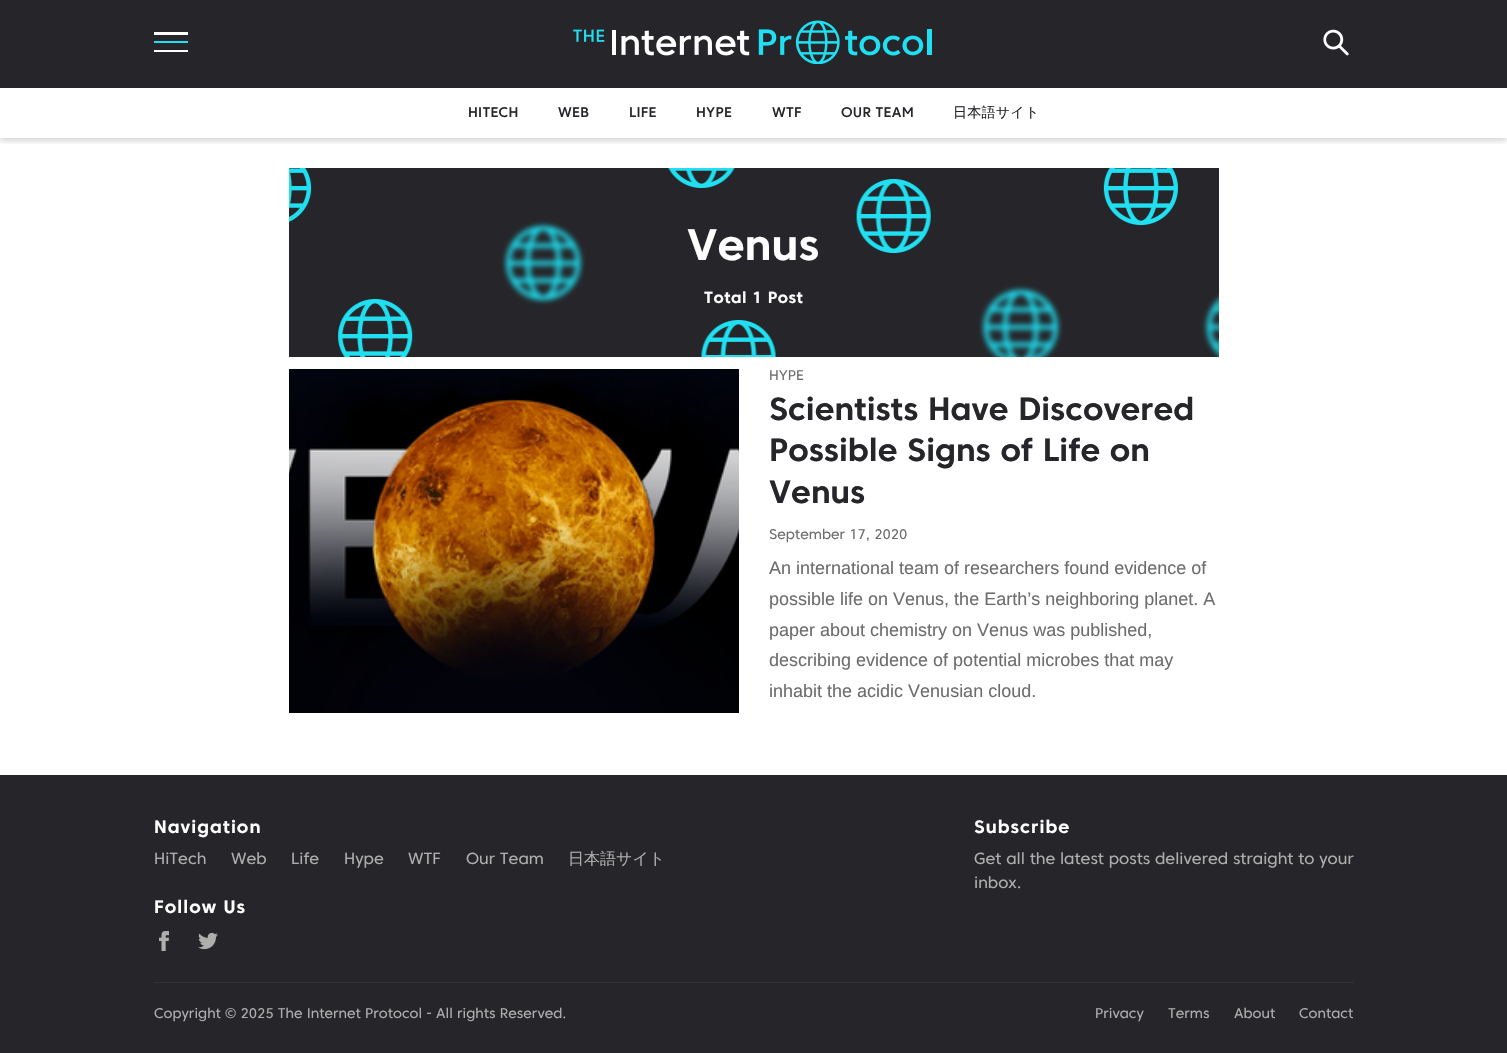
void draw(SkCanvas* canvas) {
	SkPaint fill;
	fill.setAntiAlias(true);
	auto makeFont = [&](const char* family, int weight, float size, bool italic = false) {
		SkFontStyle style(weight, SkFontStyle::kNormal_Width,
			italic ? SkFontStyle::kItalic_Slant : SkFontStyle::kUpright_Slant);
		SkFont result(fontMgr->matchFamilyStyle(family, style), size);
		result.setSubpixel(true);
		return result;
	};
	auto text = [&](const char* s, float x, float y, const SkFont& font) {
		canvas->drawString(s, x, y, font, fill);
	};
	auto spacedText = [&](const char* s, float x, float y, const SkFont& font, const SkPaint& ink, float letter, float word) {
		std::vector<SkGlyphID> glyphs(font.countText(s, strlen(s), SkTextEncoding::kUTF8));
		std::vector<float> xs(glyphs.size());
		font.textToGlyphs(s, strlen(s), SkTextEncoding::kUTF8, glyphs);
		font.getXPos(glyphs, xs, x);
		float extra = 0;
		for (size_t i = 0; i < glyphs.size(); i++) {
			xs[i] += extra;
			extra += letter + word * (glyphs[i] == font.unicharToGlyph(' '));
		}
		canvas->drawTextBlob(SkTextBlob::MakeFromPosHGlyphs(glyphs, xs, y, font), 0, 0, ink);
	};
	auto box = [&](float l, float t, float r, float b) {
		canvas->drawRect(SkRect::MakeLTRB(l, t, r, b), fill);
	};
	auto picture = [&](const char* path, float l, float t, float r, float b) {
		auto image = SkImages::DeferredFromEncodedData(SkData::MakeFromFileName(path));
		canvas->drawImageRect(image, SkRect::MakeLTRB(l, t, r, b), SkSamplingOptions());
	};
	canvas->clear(0xFFFFFFFF);
	fill.setColor(0xFF26262A);
	box(0, 0, 1507, 88);
	fill.setColor(0xFFFFFFFF);
	box(154, 32, 188, 35);
	fill.setColor(0xFF20DFF2);
	box(154, 41, 188, 43);
	fill.setColor(0xFFFFFFFF);
	box(154, 50, 188, 52);
	picture("image0.png", 573, 20, 932, 64);
	picture("image1.png", 1323, 29, 1349, 56);
	canvas->save();
	canvas->clipRect(SkRect::MakeLTRB(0, 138, 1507, 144));
	fill.setColor(0x29000000);
	fill.setMaskFilter(SkMaskFilter::MakeBlur(kNormal_SkBlurStyle, 3));
	canvas->drawRect(SkRect::MakeLTRB(0, 91, 1507, 141), fill);
	fill.setMaskFilter(nullptr);
	canvas->restore();
	picture("image2.png", 289, 168, 1219, 357);
	picture("image3.png", 289, 369, 739, 713);
	fill.setColor(0xFF26262A);
	box(0, 775, 1507, 1053);
	picture("image4.png", 159, 931, 169, 951);
	picture("image5.png", 198, 932, 218, 950);
	fill.setColor(0xFF323237);
	box(154, 982, 1354, 983);
	auto font1 = makeFont("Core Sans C", 500, 14);
	fill.setColor(0xFF26262A);
	spacedText("HITECH", 468, 117, font1, fill, 0.25f, 0);
	spacedText("WEB", 558, 117, font1, fill, 0.25f, 0);
	spacedText("LIFE", 629, 117, font1, fill, 0.25f, 0);
	spacedText("HYPE", 696, 117, font1, fill, 0.25f, 0);
	spacedText("WTF", 772, 117, font1, fill, 0.25f, 0);
	spacedText("OUR TEAM", 841, 117, font1, fill, 0.25f, 0);
	auto font2 = makeFont("WenQuanYi Zen Hei", 500, 14);
	spacedText("日本語サイト", 953, 117, font2, fill, 0.25f, 0);
	auto font3 = makeFont("Core Sans C", 700, 44);
	fill.setColor(0xFFFFFFFF);
	text("Venus", 687, 260, font3);
	auto font4 = makeFont("Core Sans C", 700, 16);
	spacedText("Total 1 Post", 704, 303, font4, fill, 0.5f, 0);
	auto font5 = makeFont("Core Sans C", 400, 14);
	fill.setColor(0xFF6D6D6D);
	text("HYPE", 769, 380, font5);
	auto font6 = makeFont("Core Sans C", 700, 32);
	fill.setColor(0xFF26262A);
	text("Scientists Have Discovered", 769, 420, font6);
	text("Possible Signs of Life on", 769, 461, font6);
	text("Venus", 769, 503, font6);
	fill.setColor(0xFF6D6D6D);
	text("September 17, 2020", 769, 539, font5);
	auto font7 = makeFont("Liberation Sans", 400, 18);
	text("An international team of researchers found evidence of", 769, 574, font7);
	text("possible life on Venus, the Earth’s neighboring planet. A", 769, 605, font7);
	text("paper about chemistry on Venus was published,", 769, 636, font7);
	text("describing evidence of potential microbes that may", 769, 666, font7);
	text("inhabit the acidic Venusian cloud.", 769, 697, font7);
	auto font8 = makeFont("Core Sans C", 700, 18);
	fill.setColor(0xFFFFFFFF);
	spacedText("Navigation", 154, 833, font8, fill, 1, 0);
	auto font9 = makeFont("Core Sans C", 400, 16);
	fill.setColor(0xFFAEAEAE);
	text("HiTech", 154, 864, font9);
	text("Web", 231, 864, font9);
	text("Life", 291, 864, font9);
	text("Hype", 344, 864, font9);
	text("WTF", 408, 864, font9);
	text("Our Team", 466, 864, font9);
	auto font10 = makeFont("WenQuanYi Zen Hei", 500, 16);
	text("日本語サイト", 568, 864, font10);
	fill.setColor(0xFFFFFFFF);
	spacedText("Follow Us", 154, 913, font8, fill, 1, 0);
	spacedText("Subscribe", 974, 833, font8, fill, 1, 0);
	fill.setColor(0xFFAEAEAE);
	text("Get all the latest posts delivered straight to your", 974, 864, font9);
	text("inbox.", 974, 888, font9);
	text("Copyright © 2025 The Internet Protocol - All rights Reserved.", 154, 1018, font5);
	text("Privacy", 1095, 1018, font5);
	text("Terms", 1168, 1018, font5);
	text("About", 1234, 1018, font5);
	text("Contact", 1299, 1018, font5);
}
